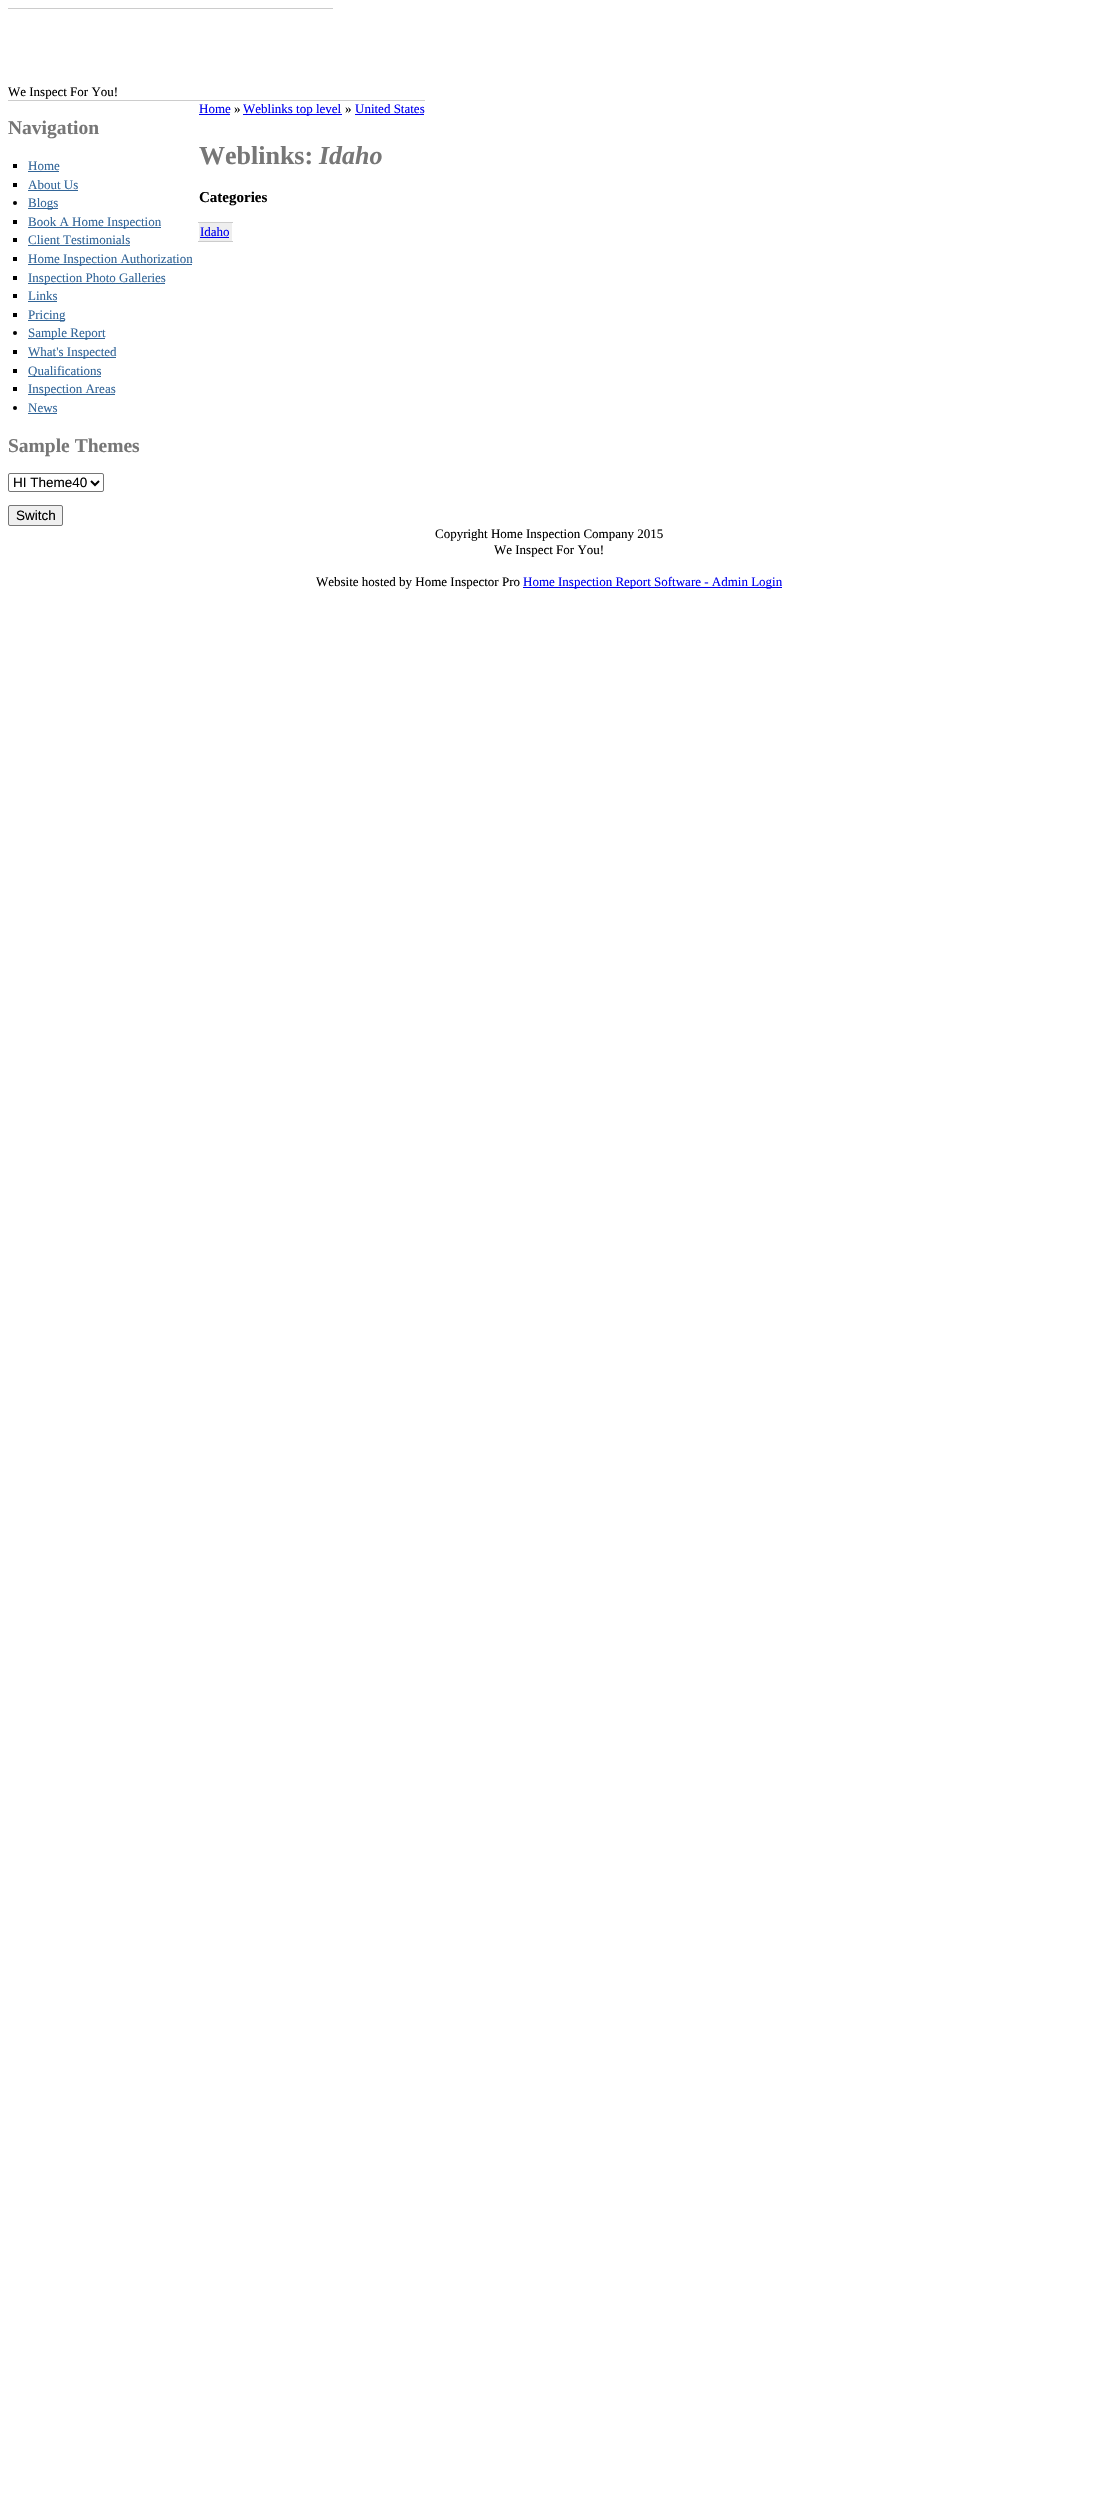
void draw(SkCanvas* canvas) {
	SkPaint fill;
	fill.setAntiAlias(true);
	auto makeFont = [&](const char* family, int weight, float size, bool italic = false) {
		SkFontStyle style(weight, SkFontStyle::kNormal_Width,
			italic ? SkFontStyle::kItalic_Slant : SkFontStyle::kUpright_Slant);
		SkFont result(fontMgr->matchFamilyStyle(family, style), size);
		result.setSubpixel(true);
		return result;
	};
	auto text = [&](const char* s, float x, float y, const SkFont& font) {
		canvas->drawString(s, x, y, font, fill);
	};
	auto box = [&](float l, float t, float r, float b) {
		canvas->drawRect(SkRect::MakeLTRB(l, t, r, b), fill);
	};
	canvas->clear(0xFFFFFFFF);
	fill.setColor(0xFFCCCCCC);
	box(8, 8, 333, 9);
	box(8, 100, 425, 101);
	fill.setColor(0xFF000000);
	box(13, 164, 17, 168);
	fill.setColor(0xFF336699);
	box(28, 171, 59, 172);
	fill.setColor(0xFF000000);
	box(13, 183, 17, 187);
	fill.setColor(0xFF336699);
	box(28, 190, 78, 191);
	fill.setColor(0xFF000000);
	canvas->drawCircle(15, 203, 2, fill);
	fill.setColor(0xFF336699);
	box(28, 208, 58, 209);
	fill.setColor(0xFF000000);
	box(13, 220, 17, 224);
	fill.setColor(0xFF336699);
	box(28, 227, 161, 228);
	fill.setColor(0xFF000000);
	box(13, 238, 17, 242);
	fill.setColor(0xFF336699);
	box(28, 245, 130, 246);
	fill.setColor(0xFF000000);
	box(13, 257, 17, 261);
	fill.setColor(0xFF336699);
	box(28, 264, 192, 265);
	fill.setColor(0xFF000000);
	box(13, 276, 17, 280);
	fill.setColor(0xFF336699);
	box(28, 283, 165, 284);
	fill.setColor(0xFF000000);
	box(13, 294, 17, 298);
	fill.setColor(0xFF336699);
	box(28, 301, 57, 302);
	fill.setColor(0xFF000000);
	box(13, 313, 17, 317);
	fill.setColor(0xFF336699);
	box(28, 320, 65, 321);
	fill.setColor(0xFF000000);
	canvas->drawCircle(15, 333, 2, fill);
	fill.setColor(0xFF336699);
	box(28, 338, 105, 339);
	fill.setColor(0xFF000000);
	box(13, 350, 17, 354);
	fill.setColor(0xFF336699);
	box(28, 357, 116, 358);
	fill.setColor(0xFF000000);
	box(13, 369, 17, 373);
	fill.setColor(0xFF336699);
	box(28, 376, 101, 377);
	fill.setColor(0xFF000000);
	box(13, 387, 17, 391);
	fill.setColor(0xFF336699);
	box(28, 394, 115, 395);
	fill.setColor(0xFF000000);
	canvas->drawCircle(15, 408, 2, fill);
	fill.setColor(0xFF336699);
	box(28, 413, 57, 414);
	fill.setStyle(SkPaint::kStroke_Style);
	fill.setStrokeWidth(1);
	fill.setColor(0xFF767676);
	canvas->drawRoundRect(SkRect::MakeLTRB(8.5f, 473.5f, 103.5f, 491.5f), 1.5f, 1.5f, fill);
	fill.setStrokeWidth(2);
	fill.setColor(0xFF000000);
	canvas->drawPath(SkPathBuilder().moveTo(91, 481).lineTo(95, 485).lineTo(99, 481).detach(), fill);
	fill.setStyle(SkPaint::kFill_Style);
	fill.setColor(0xFFEFEFEF);
	canvas->drawRoundRect(SkRect::MakeLTRB(8.5f, 505.5f, 62.5f, 525.5f), 1.5f, 1.5f, fill);
	fill.setStyle(SkPaint::kStroke_Style);
	fill.setStrokeWidth(1);
	fill.setColor(0xFF767676);
	canvas->drawRoundRect(SkRect::MakeLTRB(8.5f, 505.5f, 62.5f, 525.5f), 1.5f, 1.5f, fill);
	fill.setStyle(SkPaint::kFill_Style);
	fill.setColor(0xFF0000EE);
	box(199, 114, 230, 115);
	box(243, 114, 342, 115);
	box(355, 114, 424, 115);
	fill.setColor(0xFFCCCCCC);
	box(198, 222, 233, 223);
	fill.setColor(0xFFEEEEEE);
	box(199, 223, 232, 241);
	fill.setColor(0xFFCCCCCC);
	box(198, 241, 233, 242);
	fill.setColor(0xFF0000EE);
	box(200, 237, 229, 238);
	box(523, 587, 782, 588);
	auto font1 = makeFont("Liberation Serif", 400, 13);
	fill.setColor(0xFF000000);
	text("We Inspect For You!", 8, 96, font1);
	auto font2 = makeFont("Liberation Serif", 700, 19.5f);
	fill.setColor(0xFF777777);
	text("Navigation", 8, 134, font2);
	fill.setColor(0xFF336699);
	text("Home", 28, 170, font1);
	text("About Us", 28, 189, font1);
	text("Blogs", 28, 207, font1);
	text("Book A Home Inspection", 28, 226, font1);
	text("Client Testimonials", 28, 244, font1);
	text("Home Inspection Authorization", 28, 263, font1);
	text("Inspection Photo Galleries", 28, 282, font1);
	text("Links", 28, 300, font1);
	text("Pricing", 28, 319, font1);
	text("Sample Report", 28, 337, font1);
	text("What's Inspected", 28, 356, font1);
	text("Qualifications", 28, 375, font1);
	text("Inspection Areas", 28, 393, font1);
	text("News", 28, 412, font1);
	fill.setColor(0xFF777777);
	text("Sample Themes", 8, 452, font2);
	auto font3 = makeFont("Liberation Sans", 400, 13.5f);
	fill.setColor(0xFF000000);
	text("HI Theme40", 13, 487, font3);
	text("Switch", 16, 520, font3);
	fill.setColor(0xFF0000EE);
	text("Home", 199, 113, font1);
	fill.setColor(0xFF000000);
	text("»", 234, 113, font1);
	fill.setColor(0xFF0000EE);
	text("Weblinks top level", 243, 113, font1);
	fill.setColor(0xFF000000);
	text("»", 345, 113, font1);
	fill.setColor(0xFF0000EE);
	text("United States", 355, 113, font1);
	auto font4 = makeFont("Liberation Serif", 700, 26);
	fill.setColor(0xFF777777);
	text("Weblinks:", 199, 164, font4);
	auto font5 = makeFont("Liberation Serif", 700, 26, true);
	text("Idaho", 319, 164, font5);
	auto font6 = makeFont("Liberation Serif", 700, 15);
	fill.setColor(0xFF000000);
	text("Categories", 199, 202, font6);
	fill.setColor(0xFF0000EE);
	text("Idaho", 200, 236, font1);
	fill.setColor(0xFF000000);
	text("Copyright Home Inspection Company 2015", 435, 538, font1);
	text("We Inspect For You!", 494, 554, font1);
	text("Website hosted by Home Inspector Pro", 316, 586, font1);
	fill.setColor(0xFF0000EE);
	text("Home Inspection Report Software - Admin Login", 523, 586, font1);
}
